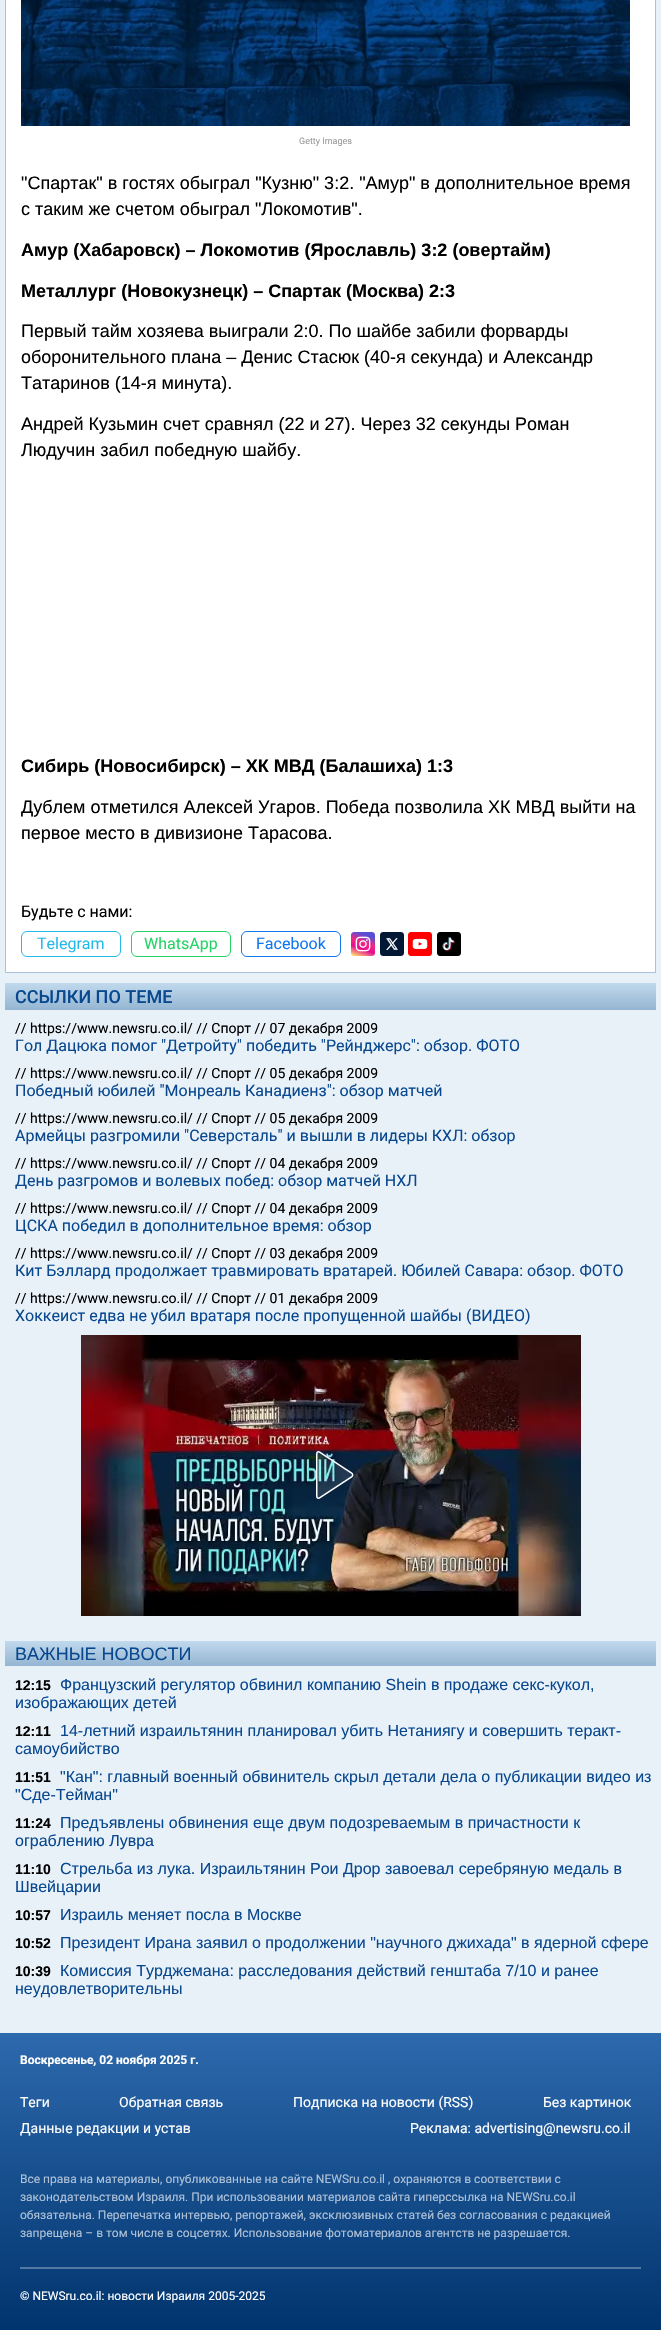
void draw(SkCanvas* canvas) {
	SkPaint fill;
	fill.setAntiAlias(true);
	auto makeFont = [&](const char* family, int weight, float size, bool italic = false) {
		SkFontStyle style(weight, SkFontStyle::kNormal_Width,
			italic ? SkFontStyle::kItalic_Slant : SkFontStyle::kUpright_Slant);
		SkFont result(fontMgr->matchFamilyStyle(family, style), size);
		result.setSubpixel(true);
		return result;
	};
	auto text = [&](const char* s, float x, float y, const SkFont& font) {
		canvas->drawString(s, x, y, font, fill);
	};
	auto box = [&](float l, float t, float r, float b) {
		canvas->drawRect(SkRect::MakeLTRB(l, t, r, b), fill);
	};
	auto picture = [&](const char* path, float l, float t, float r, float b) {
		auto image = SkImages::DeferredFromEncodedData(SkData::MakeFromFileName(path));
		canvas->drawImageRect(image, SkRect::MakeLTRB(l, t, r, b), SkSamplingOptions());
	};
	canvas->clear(0xFFE8F1F8);
	fill.setColor(0xFFFFFFFF);
	canvas->drawRect(SkRect::MakeLTRB(5.5f, -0.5f, 655.5f, 972.5f), fill);
	fill.setStyle(SkPaint::kStroke_Style);
	fill.setStrokeWidth(1);
	fill.setColor(0xFFAAC2DB);
	canvas->drawRect(SkRect::MakeLTRB(5.5f, -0.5f, 655.5f, 972.5f), fill);
	picture("image0.png", 21, 0, 630, 126);
	fill.setColor(0xFF27BAE7);
	canvas->drawRoundRect(SkRect::MakeLTRB(21.5f, 931.5f, 120.5f, 956.5f), 5.5f, 5.5f, fill);
	fill.setColor(0xFF25D366);
	canvas->drawRoundRect(SkRect::MakeLTRB(131.5f, 931.5f, 230.5f, 956.5f), 5.5f, 5.5f, fill);
	fill.setColor(0xFF1077F0);
	canvas->drawRoundRect(SkRect::MakeLTRB(241.5f, 931.5f, 340.5f, 956.5f), 5.5f, 5.5f, fill);
	picture("image1.png", 351, 932, 375, 956);
	picture("image2.png", 380, 932, 404, 956);
	picture("image3.png", 408, 932, 432, 956);
	picture("image4.png", 437, 932, 461, 956);
	fill.setStyle(SkPaint::kFill_Style);
	{
		const SkColor colors[] = {0xFFC1D9ED, 0xFF94B5D1};
		const float stops[] = {0, 1};
		const SkPoint ends[] = {{331, 983}, {331, 1010}};
		fill.setShader(SkGradientShader::MakeLinear(ends, colors, stops, 2, SkTileMode::kClamp));
		fill.setAlpha(255);
	}
	box(5, 983, 656, 1010);
	picture("image5.png", 81, 1335, 581, 1616);
	picture("image6.png", 316, 1451, 354, 1499);
	{
		const SkColor colors[] = {0xFFC1D9ED, 0xFF94B5D1};
		const float stops[] = {0, 1};
		const SkPoint ends[] = {{331, 1641}, {331, 1666}};
		fill.setShader(SkGradientShader::MakeLinear(ends, colors, stops, 2, SkTileMode::kClamp));
		fill.setAlpha(255);
	}
	box(5, 1641, 656, 1666);
	{
		const SkColor colors[] = {0xFF2D69AD, 0xFF00346D};
		const float stops[] = {0, 1};
		const SkPoint ends[] = {{331, 2033}, {331, 2330}};
		fill.setShader(SkGradientShader::MakeLinear(ends, colors, stops, 2, SkTileMode::kClamp));
		fill.setAlpha(255);
	}
	box(0, 2033, 661, 2330);
	fill.setShader(nullptr);
	fill.setColor(0xFF5379A2);
	box(20, 2267, 641, 2269);
	auto font1 = makeFont("Roboto", 400, 9);
	fill.setColor(0xFF999999);
	text("Getty Images", 299, 144, font1);
	auto font2 = makeFont("Liberation Sans", 400, 18);
	fill.setColor(0xFF000000);
	text("\"Спартак\" в гостях обыграл \"Кузню\" 3:2. \"Амур\" в дополнительное время", 21, 189, font2);
	text("с таким же счетом обыграл \"Локомотив\".", 21, 215, font2);
	auto font3 = makeFont("Liberation Sans", 700, 18);
	text("Амур (Хабаровск) – Локомотив (Ярославль) 3:2 (овертайм)", 21, 256, font3);
	text("Металлург (Новокузнецк) – Спартак (Москва) 2:3", 21, 297, font3);
	text("Первый тайм хозяева выиграли 2:0. По шайбе забили форварды", 21, 337, font2);
	text("оборонительного плана – Денис Стасюк (40-я секунда) и Александр", 21, 363, font2);
	text("Татаринов (14-я минута).", 21, 389, font2);
	text("Андрей Кузьмин счет сравнял (22 и 27). Через 32 секунды Роман", 21, 430, font2);
	text("Людучин забил победную шайбу.", 21, 456, font2);
	text("Сибирь (Новосибирск) – ХК МВД (Балашиха) 1:3", 21, 772, font3);
	text("Дублем отметился Алексей Угаров. Победа позволила ХК МВД выйти на", 21, 813, font2);
	text("первое место в дивизионе Тарасова.", 21, 839, font2);
	auto font4 = makeFont("Roboto", 400, 16);
	text("Будьте с нами:", 21, 917, font4);
	fill.setColor(0xFF27BAE7);
	text("Telegram", 37, 949, font4);
	fill.setColor(0xFF25D366);
	text("WhatsApp", 144, 949, font4);
	fill.setColor(0xFF1077F0);
	text("Facebook", 256, 949, font4);
	auto font5 = makeFont("Roboto", 500, 18);
	fill.setColor(0xFF09488F);
	text("ССЫЛКИ ПО ТЕМЕ", 15, 1003, font5);
	auto font6 = makeFont("Roboto", 400, 14);
	fill.setColor(0xFF000000);
	text("// https://www.newsru.co.il/ // Спорт // 07 декабря 2009", 15, 1033, font6);
	fill.setColor(0xFF09488F);
	text("Гол Дацюка помог \"Детройту\" победить \"Рейнджерс\": обзор. ФОТО", 15, 1051, font4);
	fill.setColor(0xFF000000);
	text("// https://www.newsru.co.il/ // Спорт // 05 декабря 2009", 15, 1078, font6);
	fill.setColor(0xFF09488F);
	text("Победный юбилей \"Монреаль Канадиенз\": обзор матчей", 15, 1096, font4);
	fill.setColor(0xFF000000);
	text("// https://www.newsru.co.il/ // Спорт // 05 декабря 2009", 15, 1123, font6);
	fill.setColor(0xFF09488F);
	text("Армейцы разгромили \"Северсталь\" и вышли в лидеры КХЛ: обзор", 15, 1141, font4);
	fill.setColor(0xFF000000);
	text("// https://www.newsru.co.il/ // Спорт // 04 декабря 2009", 15, 1168, font6);
	fill.setColor(0xFF09488F);
	text("День разгромов и волевых побед: обзор матчей НХЛ", 15, 1186, font4);
	fill.setColor(0xFF000000);
	text("// https://www.newsru.co.il/ // Спорт // 04 декабря 2009", 15, 1213, font6);
	fill.setColor(0xFF09488F);
	text("ЦСКА победил в дополнительное время: обзор", 15, 1231, font4);
	fill.setColor(0xFF000000);
	text("// https://www.newsru.co.il/ // Спорт // 03 декабря 2009", 15, 1258, font6);
	fill.setColor(0xFF09488F);
	text("Кит Бэллард продолжает травмировать вратарей. Юбилей Савара: обзор. ФОТО", 15, 1276, font4);
	fill.setColor(0xFF000000);
	text("// https://www.newsru.co.il/ // Спорт // 01 декабря 2009", 15, 1303, font6);
	fill.setColor(0xFF09488F);
	text("Хоккеист едва не убил вратаря после пропущенной шайбы (ВИДЕО)", 15, 1321, font4);
	text("ВАЖНЫЕ НОВОСТИ", 15, 1660, font2);
	auto font7 = makeFont("Liberation Sans", 700, 14);
	fill.setColor(0xFF000000);
	text("12:15", 15, 1690, font7);
	auto font8 = makeFont("Liberation Sans", 400, 16);
	fill.setColor(0xFF09488F);
	text("Французский регулятор обвинил компанию Shein в продаже секс-кукол,", 60, 1690, font8);
	text("изображающих детей", 15, 1708, font8);
	fill.setColor(0xFF000000);
	text("12:11", 15, 1736, font7);
	fill.setColor(0xFF09488F);
	text("14-летний израильтянин планировал убить Нетаниягу и совершить теракт-", 60, 1736, font8);
	text("самоубийство", 15, 1754, font8);
	fill.setColor(0xFF000000);
	text("11:51", 15, 1782, font7);
	fill.setColor(0xFF09488F);
	text("\"Кан\": главный военный обвинитель скрыл детали дела о публикации видео из", 60, 1782, font8);
	text("\"Сде-Тейман\"", 15, 1800, font8);
	fill.setColor(0xFF000000);
	text("11:24", 15, 1828, font7);
	fill.setColor(0xFF09488F);
	text("Предъявлены обвинения еще двум подозреваемым в причастности к", 60, 1828, font8);
	text("ограблению Лувра", 15, 1846, font8);
	fill.setColor(0xFF000000);
	text("11:10", 15, 1874, font7);
	fill.setColor(0xFF09488F);
	text("Стрельба из лука. Израильтянин Рои Дрор завоевал серебряную медаль в", 60, 1874, font8);
	text("Швейцарии", 15, 1892, font8);
	fill.setColor(0xFF000000);
	text("10:57", 15, 1920, font7);
	fill.setColor(0xFF09488F);
	text("Израиль меняет посла в Москве", 60, 1920, font8);
	fill.setColor(0xFF000000);
	text("10:52", 15, 1948, font7);
	fill.setColor(0xFF09488F);
	text("Президент Ирана заявил о продолжении \"научного джихада\" в ядерной сфере", 60, 1948, font8);
	fill.setColor(0xFF000000);
	text("10:39", 15, 1976, font7);
	fill.setColor(0xFF09488F);
	text("Комиссия Турджемана: расследования действий генштаба 7/10 и ранее", 60, 1976, font8);
	text("неудовлетворительны", 15, 1994, font8);
	auto font9 = makeFont("Roboto", 700, 12);
	fill.setColor(0xFFFFFFFF);
	text("Воскресенье, 02 ноября 2025 г.", 20, 2064, font9);
	text("Теги", 20, 2107, font6);
	text("Обратная связь", 119, 2107, font6);
	text("Подписка на новости (RSS)", 293, 2107, font6);
	text("Без картинок", 543, 2107, font6);
	text("Данные редакции и устав", 20, 2133, font6);
	text("Реклама: advertising@newsru.co.il", 410, 2133, font6);
	auto font10 = makeFont("Roboto", 400, 12);
	fill.setColor(0xFFAEC1D7);
	text("Все права на материалы, опубликованные на сайте NEWSru.co.il , охраняются в соответствии с", 20, 2183, font10);
	text("законодательством Израиля. При использовании материалов сайта гиперссылка на NEWSru.co.il", 20, 2201, font10);
	text("обязательна. Перепечатка интервью, репортажей, эксклюзивных статей без согласования с редакцией", 20, 2219, font10);
	text("запрещена – в том числе в соцсетях. Использование фотоматериалов агентств не разрешается.", 20, 2237, font10);
	fill.setColor(0xFFFFFFFF);
	text("© NEWSru.co.il: новости Израиля 2005-2025", 20, 2300, font10);
}
